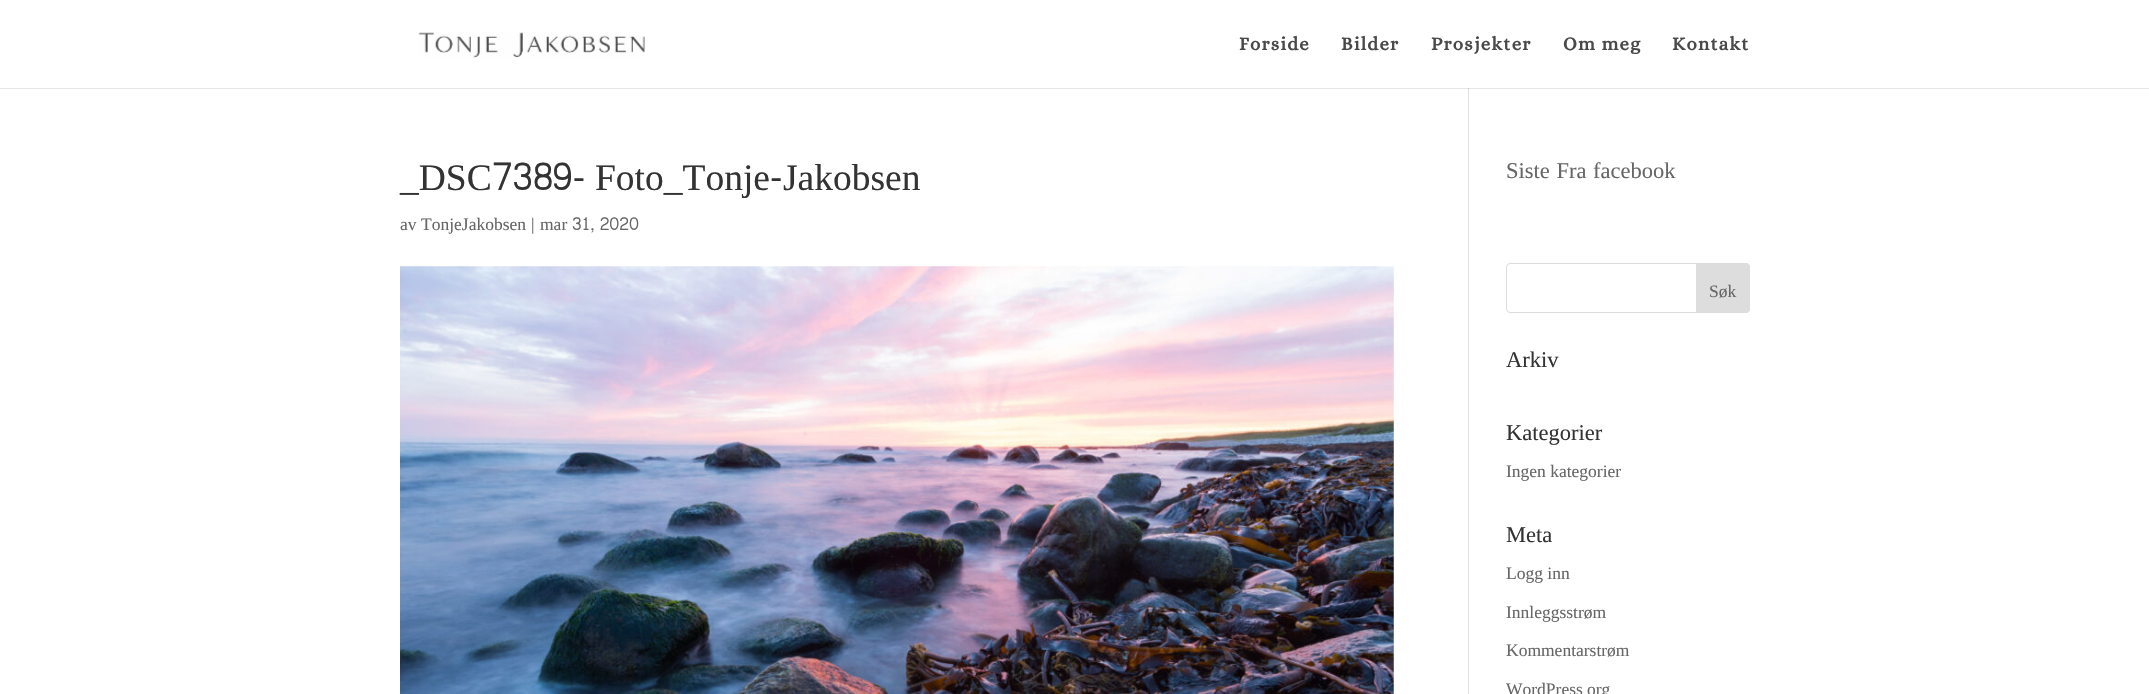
void draw(SkCanvas* canvas) {
	SkPaint fill;
	fill.setAntiAlias(true);
	auto makeFont = [&](const char* family, int weight, float size, bool italic = false) {
		SkFontStyle style(weight, SkFontStyle::kNormal_Width,
			italic ? SkFontStyle::kItalic_Slant : SkFontStyle::kUpright_Slant);
		SkFont result(fontMgr->matchFamilyStyle(family, style), size);
		result.setSubpixel(true);
		return result;
	};
	auto text = [&](const char* s, float x, float y, const SkFont& font) {
		canvas->drawString(s, x, y, font, fill);
	};
	auto spacedText = [&](const char* s, float x, float y, const SkFont& font, const SkPaint& ink, float letter, float word) {
		std::vector<SkGlyphID> glyphs(font.countText(s, strlen(s), SkTextEncoding::kUTF8));
		std::vector<float> xs(glyphs.size());
		font.textToGlyphs(s, strlen(s), SkTextEncoding::kUTF8, glyphs);
		font.getXPos(glyphs, xs, x);
		float extra = 0;
		for (size_t i = 0; i < glyphs.size(); i++) {
			xs[i] += extra;
			extra += letter + word * (glyphs[i] == font.unicharToGlyph(' '));
		}
		canvas->drawTextBlob(SkTextBlob::MakeFromPosHGlyphs(glyphs, xs, y, font), 0, 0, ink);
	};
	auto box = [&](float l, float t, float r, float b) {
		canvas->drawRect(SkRect::MakeLTRB(l, t, r, b), fill);
	};
	auto picture = [&](const char* path, float l, float t, float r, float b) {
		auto image = SkImages::DeferredFromEncodedData(SkData::MakeFromFileName(path));
		canvas->drawImageRect(image, SkRect::MakeLTRB(l, t, r, b), SkSamplingOptions());
	};
	canvas->clear(0xFFFFFFFF);
	fill.setColor(0xFFE6E6E6);
	box(0, 88, 2149, 89);
	picture("image0.png", 418, 32, 645, 58);
	fill.setColor(0xFFE2E2E2);
	box(1468, 88, 1469, 694);
	fill.setColor(0xFFCBCBCB);
	box(1468, 88, 1469, 89);
	picture("image1.png", 400, 266, 1394, 694);
	fill.setStyle(SkPaint::kStroke_Style);
	fill.setStrokeWidth(1);
	fill.setColor(0xFFDDDDDD);
	canvas->drawRoundRect(SkRect::MakeLTRB(1506.5f, 263.5f, 1749.5f, 312.5f), 3.5f, 3.5f, fill);
	fill.setStyle(SkPaint::kFill_Style);
	canvas->drawPath(SkPathBuilder().moveTo(1696.5f, 263.5f).lineTo(1746, 263.5f).cubicTo(1748, 263.5f, 1749.5f, 265, 1749.5f, 267).lineTo(1749.5f, 309).cubicTo(1749.5f, 311, 1748, 312.5f, 1746, 312.5f).lineTo(1696.5f, 312.5f).close().detach(), fill);
	fill.setStyle(SkPaint::kStroke_Style);
	canvas->drawPath(SkPathBuilder().moveTo(1696.5f, 263.5f).lineTo(1746, 263.5f).cubicTo(1748, 263.5f, 1749.5f, 265, 1749.5f, 267).lineTo(1749.5f, 309).cubicTo(1749.5f, 311, 1748, 312.5f, 1746, 312.5f).lineTo(1696.5f, 312.5f).close().detach(), fill);
	auto font1 = makeFont("Alice", 700, 18.75f);
	fill.setStyle(SkPaint::kFill_Style);
	fill.setColor(0xFF494949);
	spacedText("Forside", 1239, 50, font1, fill, 1.25f, 0);
	spacedText("Bilder", 1341, 50, font1, fill, 1.25f, 0);
	spacedText("Prosjekter", 1431, 50, font1, fill, 1.25f, 0);
	spacedText("Om meg", 1563, 50, font1, fill, 1.25f, 0);
	spacedText("Kontakt", 1672, 50, font1, fill, 1.25f, 0);
	auto font2 = makeFont("Liberation Serif", 400, 37.5f);
	fill.setColor(0xFF333333);
	text("_DSC", 400, 190, font2);
	auto font3 = makeFont("Chenla", 400, 37.5f);
	text("7389-", 492, 190, font3);
	text("Foto_Tonje", 595, 190, font2);
	text("-", 770, 190, font3);
	text("Jakobsen", 783, 190, font2);
	auto font4 = makeFont("Liberation Serif", 400, 17.5f);
	fill.setColor(0xFF666666);
	text("av", 400, 230, font4);
	text("TonjeJakobsen", 421, 230, font4);
	text("|", 531, 230, font4);
	text("mar", 540, 230, font4);
	auto font5 = makeFont("Chenla", 400, 17.5f);
	text("31, 2020", 572, 230, font5);
	auto font6 = makeFont("Liberation Serif", 400, 22.5f);
	spacedText("Siste Fra facebook", 1506, 178, font6, fill, 0, 1);
	text("Søk", 1709, 297, font4);
	fill.setColor(0xFF333333);
	text("Arkiv", 1506, 367, font6);
	text("Kategorier", 1506, 440, font6);
	fill.setColor(0xFF666666);
	text("Ingen kategorier", 1506, 477, font4);
	fill.setColor(0xFF333333);
	text("Meta", 1506, 542, font6);
	fill.setColor(0xFF666666);
	text("Logg inn", 1506, 579, font4);
	text("Innleggsstrøm", 1506, 618, font4);
	text("Kommentarstrøm", 1506, 656, font4);
	text("WordPress", 1506, 695, font4);
	text("org", 1587, 695, font4);
}
